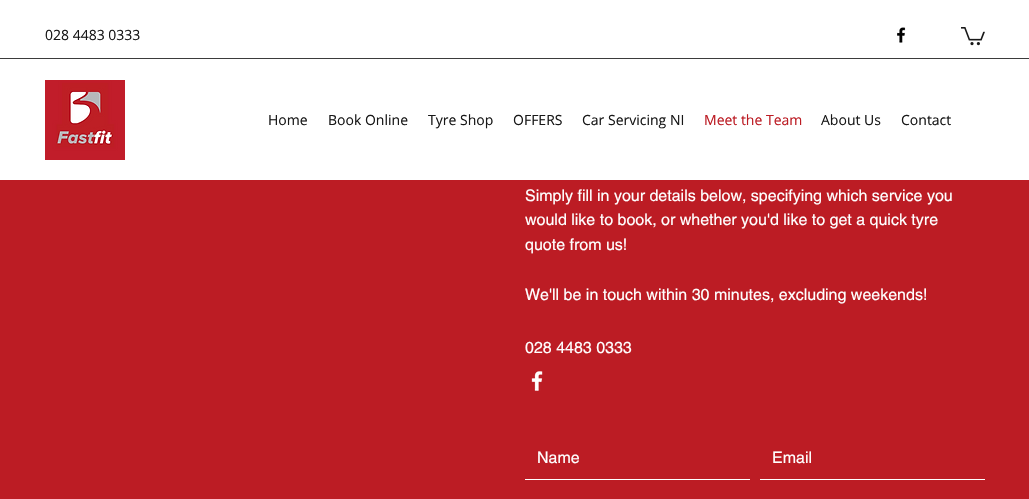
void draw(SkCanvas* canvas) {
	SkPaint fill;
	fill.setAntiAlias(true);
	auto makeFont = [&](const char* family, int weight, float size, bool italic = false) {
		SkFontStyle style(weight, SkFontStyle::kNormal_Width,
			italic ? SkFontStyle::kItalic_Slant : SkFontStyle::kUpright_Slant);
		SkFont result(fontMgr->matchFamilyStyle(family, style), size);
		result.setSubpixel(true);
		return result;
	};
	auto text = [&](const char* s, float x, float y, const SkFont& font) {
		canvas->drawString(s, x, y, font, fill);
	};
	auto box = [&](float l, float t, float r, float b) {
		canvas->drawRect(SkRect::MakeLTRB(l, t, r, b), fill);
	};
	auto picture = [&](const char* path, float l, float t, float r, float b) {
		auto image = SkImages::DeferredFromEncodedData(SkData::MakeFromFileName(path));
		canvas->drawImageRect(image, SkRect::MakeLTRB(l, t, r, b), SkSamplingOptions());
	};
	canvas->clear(0xFFBC1C24);
	fill.setColor(0xFFFFFFFF);
	box(0, 0, 1029, 180);
	picture("image0.png", 897, 27, 906, 43);
	picture("image1.png", 961, 27, 985, 46);
	fill.setColor(0xFF3B3B3B);
	box(0, 58, 1029, 59);
	picture("image2.png", 45, 80, 125, 160);
	picture("image3.png", 531, 371, 543, 391);
	fill.setColor(0xFFFFFFFF);
	box(525, 479, 750, 480);
	box(760, 479, 985, 480);
	auto font1 = makeFont("Open Sans", 400, 14);
	fill.setColor(0xFF181818);
	text("028 4483 0333", 45, 40, font1);
	text("Home", 268, 125, font1);
	text("Book Online", 328, 125, font1);
	text("Tyre Shop", 428, 125, font1);
	text("OFFERS", 513, 125, font1);
	text("Car Servicing NI", 582, 125, font1);
	fill.setColor(0xFFBC1C24);
	text("Meet the Team", 704, 125, font1);
	fill.setColor(0xFF181818);
	text("About Us", 821, 125, font1);
	text("Contact", 901, 125, font1);
	auto font2 = makeFont("helvetica", 400, 16);
	fill.setColor(0xFFFFFFFF);
	text("Simply fill in your details below, specifying which service you", 525, 201, font2);
	text("would like to book, or whether you'd like to get a quick tyre", 525, 225, font2);
	text("quote from us!", 525, 250, font2);
	text("We'll be in touch within 30 minutes, excluding weekends!", 525, 300, font2);
	text("028 4483 0333", 525, 353, font2);
	text("Name", 537, 463, font2);
	text("Email", 772, 463, font2);
}
